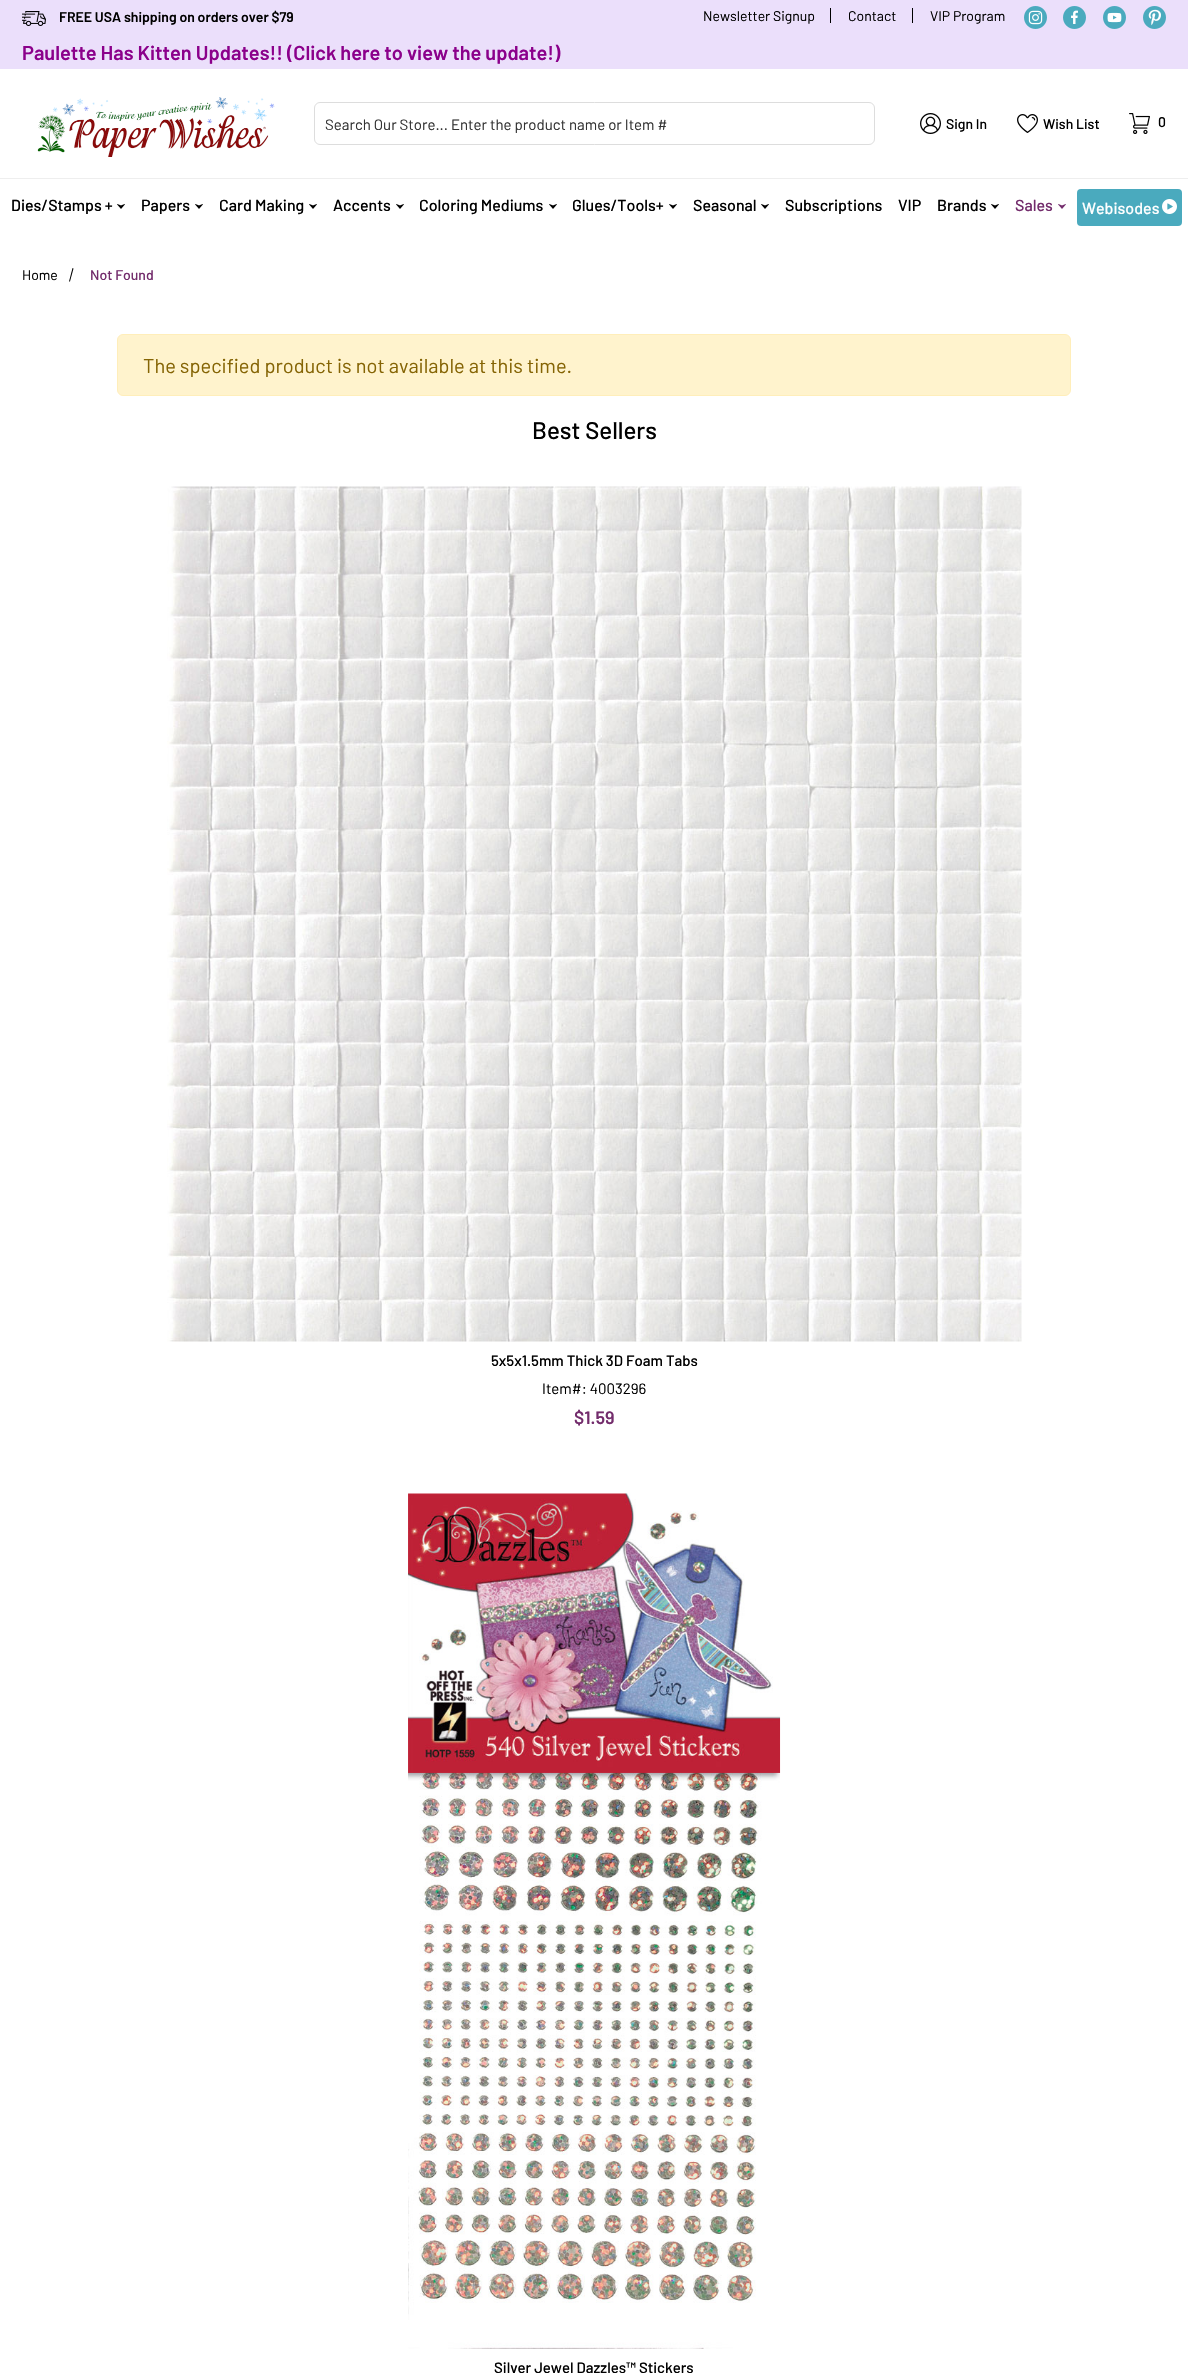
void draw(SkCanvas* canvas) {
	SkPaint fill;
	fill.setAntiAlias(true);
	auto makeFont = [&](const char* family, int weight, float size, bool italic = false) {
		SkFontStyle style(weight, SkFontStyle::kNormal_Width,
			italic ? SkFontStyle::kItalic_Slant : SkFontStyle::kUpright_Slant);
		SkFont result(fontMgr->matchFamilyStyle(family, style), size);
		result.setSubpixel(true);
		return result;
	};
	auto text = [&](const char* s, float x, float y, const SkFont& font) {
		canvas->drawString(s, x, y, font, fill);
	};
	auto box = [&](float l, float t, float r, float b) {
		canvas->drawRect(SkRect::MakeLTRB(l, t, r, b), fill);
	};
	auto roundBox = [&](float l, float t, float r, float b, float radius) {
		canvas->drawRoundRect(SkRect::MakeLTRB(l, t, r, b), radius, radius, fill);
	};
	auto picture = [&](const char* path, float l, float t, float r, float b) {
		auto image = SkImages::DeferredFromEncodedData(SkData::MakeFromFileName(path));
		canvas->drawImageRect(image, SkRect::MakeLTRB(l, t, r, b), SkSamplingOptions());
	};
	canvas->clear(0xFFFFFFFF);
	fill.setColor(0xFFEBDFFB);
	box(0, 0, 1188, 69);
	picture("image0.png", 22, 11, 46, 26);
	fill.setColor(0xFF000000);
	box(830, 8, 831, 23);
	box(912, 8, 913, 23);
	picture("image1.png", 1024, 6, 1047, 29);
	picture("image2.png", 1063, 6, 1086, 29);
	picture("image3.png", 1103, 6, 1126, 29);
	picture("image4.png", 1143, 6, 1166, 29);
	picture("image5.png", 37, 97, 275, 157);
	fill.setStyle(SkPaint::kStroke_Style);
	fill.setStrokeWidth(1);
	fill.setColor(0xFFDDDDDD);
	canvas->drawRoundRect(SkRect::MakeLTRB(314.5f, 102.5f, 874.5f, 144.5f), 5.5f, 5.5f, fill);
	picture("image6.png", 920, 113, 941, 134);
	picture("image7.png", 1017, 114, 1038, 133);
	picture("image8.png", 1129, 113, 1150, 134);
	fill.setStyle(SkPaint::kFill_Style);
	fill.setColor(0xFFEEEEEE);
	box(0, 178, 1188, 179);
	picture("image9.png", 117, 204, 125, 209);
	picture("image9.png", 195, 204, 203, 209);
	picture("image9.png", 309, 204, 317, 209);
	picture("image9.png", 396, 204, 404, 209);
	picture("image9.png", 549, 204, 557, 209);
	picture("image9.png", 669, 204, 677, 209);
	picture("image9.png", 761, 204, 769, 209);
	picture("image9.png", 991, 204, 999, 209);
	picture("image10.png", 1058, 204, 1066, 209);
	fill.setColor(0xFF4AAABE);
	roundBox(1077, 189, 1182, 226, 4);
	picture("image11.png", 1162, 199, 1177, 214);
	fill.setColor(0xFF000000);
	canvas->drawPath(SkPathBuilder().moveTo(72.5f, 268).lineTo(73.5f, 268.5f).lineTo(70, 281.5f).lineTo(69, 281.5f).close().detach(), fill);
	fill.setColor(0xFFFFF3CD);
	canvas->drawRoundRect(SkRect::MakeLTRB(117.5f, 334.5f, 1070.5f, 395.5f), 5.5f, 5.5f, fill);
	fill.setStyle(SkPaint::kStroke_Style);
	fill.setColor(0xFFFFEEBA);
	canvas->drawRoundRect(SkRect::MakeLTRB(117.5f, 334.5f, 1070.5f, 395.5f), 5.5f, 5.5f, fill);
	picture("image12.png", 167, 486, 1022, 1342);
	picture("image13.png", 408, 1493, 781, 2349);
	auto font1 = makeFont("Barlow", 600, 14);
	fill.setStyle(SkPaint::kFill_Style);
	fill.setColor(0xFF000000);
	text("FREE USA shipping on orders over $79", 59, 22, font1);
	auto font2 = makeFont("Barlow", 400, 14);
	text("Newsletter Signup", 703, 21, font2);
	text("Contact", 848, 21, font2);
	text("VIP Program", 930, 21, font2);
	auto font3 = makeFont("Barlow", 600, 20);
	fill.setColor(0xFF8B008B);
	text("Paulette Has Kitten Updates!! (Click here to view the update!)", 22, 60, font3);
	auto font4 = makeFont("Barlow", 400, 15);
	fill.setColor(0xFF333333);
	text("Search Our Store... Enter the product name or Item #", 325, 130, font4);
	auto font5 = makeFont("Barlow", 500, 14);
	fill.setColor(0xFF000000);
	text("Sign In", 946, 129, font5);
	text("Wish List", 1043, 129, font5);
	text("0", 1158, 127, font5);
	auto font6 = makeFont("Barlow", 500, 16);
	text("Dies/Stamps +", 11, 211, font6);
	text("Papers", 141, 211, font6);
	text("Card Making", 219, 211, font6);
	text("Accents", 333, 211, font6);
	text("Coloring Mediums", 419, 211, font6);
	text("Glues/Tools+", 572, 211, font6);
	text("Seasonal", 693, 211, font6);
	text("Subscriptions", 785, 211, font6);
	text("VIP", 898, 211, font6);
	text("Brands", 937, 211, font6);
	fill.setColor(0xFF732C6C);
	text("Sales", 1015, 211, font6);
	fill.setColor(0xFFFFFFFF);
	text("Webisodes", 1082, 214, font6);
	fill.setColor(0xFF000000);
	text("Home", 22, 280, font2);
	fill.setColor(0xFF732C6C);
	text("Not Found", 90, 280, font5);
	auto font7 = makeFont("Barlow", 400, 20);
	fill.setColor(0xFF856404);
	text("The specified product is not available at this time.", 143, 373, font7);
	auto font8 = makeFont("Barlow", 500, 24);
	fill.setColor(0xFF000000);
	text("Best Sellers", 532, 439, font8);
	auto font9 = makeFont("Barlow", 500, 15);
	text("5x5x1.5mm Thick 3D Foam Tabs", 491, 1366, font9);
	text("Item#: 4003296", 542, 1394, font4);
	auto font10 = makeFont("Barlow", 600, 18);
	fill.setColor(0xFF732C6C);
	text("$1.59", 574, 1424, font10);
	fill.setColor(0xFF000000);
	text("Silver Jewel Dazzles™ Stickers", 494, 2373, font9);
}
